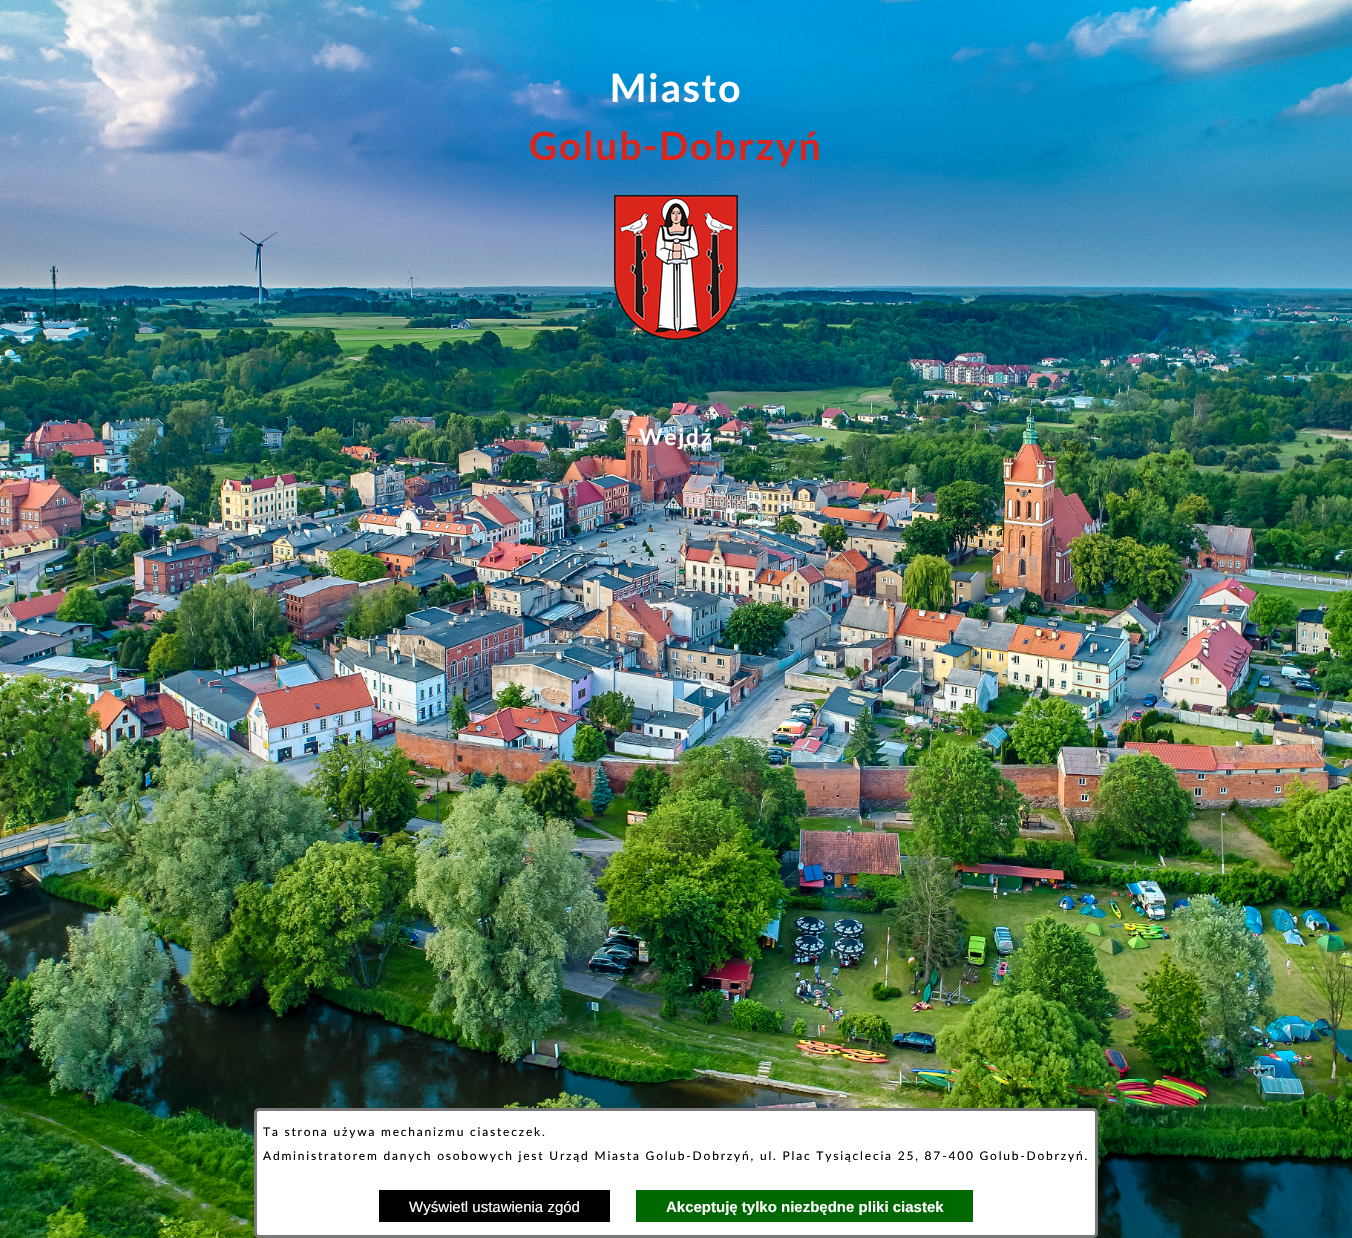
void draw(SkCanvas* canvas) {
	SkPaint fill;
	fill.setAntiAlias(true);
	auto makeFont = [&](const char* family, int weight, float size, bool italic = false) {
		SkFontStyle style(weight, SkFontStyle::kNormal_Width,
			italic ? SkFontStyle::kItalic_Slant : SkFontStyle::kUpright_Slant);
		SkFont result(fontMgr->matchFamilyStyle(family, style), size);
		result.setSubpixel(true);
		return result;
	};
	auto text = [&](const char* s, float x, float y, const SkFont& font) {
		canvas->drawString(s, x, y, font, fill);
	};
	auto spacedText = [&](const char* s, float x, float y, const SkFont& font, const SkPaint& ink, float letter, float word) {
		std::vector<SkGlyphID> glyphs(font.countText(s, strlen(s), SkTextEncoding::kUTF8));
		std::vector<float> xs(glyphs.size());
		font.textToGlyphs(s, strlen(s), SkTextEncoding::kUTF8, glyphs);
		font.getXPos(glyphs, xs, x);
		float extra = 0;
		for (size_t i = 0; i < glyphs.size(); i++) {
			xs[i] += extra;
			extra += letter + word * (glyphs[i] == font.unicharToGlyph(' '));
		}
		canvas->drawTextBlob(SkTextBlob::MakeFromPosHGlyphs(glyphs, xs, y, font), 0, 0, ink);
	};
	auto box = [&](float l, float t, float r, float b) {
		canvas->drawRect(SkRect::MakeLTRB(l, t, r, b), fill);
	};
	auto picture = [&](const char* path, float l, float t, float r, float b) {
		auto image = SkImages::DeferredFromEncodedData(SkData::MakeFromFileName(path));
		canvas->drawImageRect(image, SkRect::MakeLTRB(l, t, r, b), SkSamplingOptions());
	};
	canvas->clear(0xFFFFFFFF);
	picture("image0.png", 0, 0, 1352, 1238);
	picture("image1.png", 614, 195, 738, 340);
	fill.setColor(0xFFFFFFFF);
	canvas->drawRoundRect(SkRect::MakeLTRB(255.5f, 1109.5f, 1096.5f, 1236.5f), 3.5f, 3.5f, fill);
	fill.setStyle(SkPaint::kStroke_Style);
	fill.setStrokeWidth(3);
	fill.setColor(0xFF787878);
	canvas->drawRoundRect(SkRect::MakeLTRB(255.5f, 1109.5f, 1096.5f, 1236.5f), 3.5f, 3.5f, fill);
	fill.setStyle(SkPaint::kFill_Style);
	fill.setColor(0xFF000000);
	box(379, 1190, 610, 1222);
	fill.setColor(0xFF006800);
	box(636, 1190, 973, 1222);
	auto font1 = makeFont("Lato", 700, 39);
	fill.setColor(0xFFFFFFFF);
	spacedText("Miasto", 610, 102, font1, fill, 1.8f, 0);
	fill.setColor(0xFFDA251D);
	spacedText("Golub-Dobrzyń", 529, 160, font1, fill, 1.8f, 0);
	auto font2 = makeFont("Lato", 700, 22.5f);
	fill.setColor(0xFFFFFFFF);
	spacedText("Wejdź", 639, 445, font2, fill, 1.8f, 0);
	auto font3 = makeFont("Lato", 400, 12);
	fill.setColor(0xFF000000);
	spacedText("Ta strona używa mechanizmu ciasteczek.", 263, 1136, font3, fill, 1.8f, 0);
	spacedText("Administratorem danych osobowych jest Urząd Miasta Golub-Dobrzyń, ul. Plac Tysiąclecia 25, 87-400 Golub-Dobrzyń.", 263, 1160, font3, fill, 1.8f, 0);
	auto font4 = makeFont("Liberation Sans", 400, 15);
	fill.setColor(0xFFFFFFFF);
	text("Wyświetl ustawienia zgód", 409, 1212, font4);
	auto font5 = makeFont("Liberation Sans", 700, 15);
	text("Akceptuję tylko niezbędne pliki ciastek", 666, 1212, font5);
}
